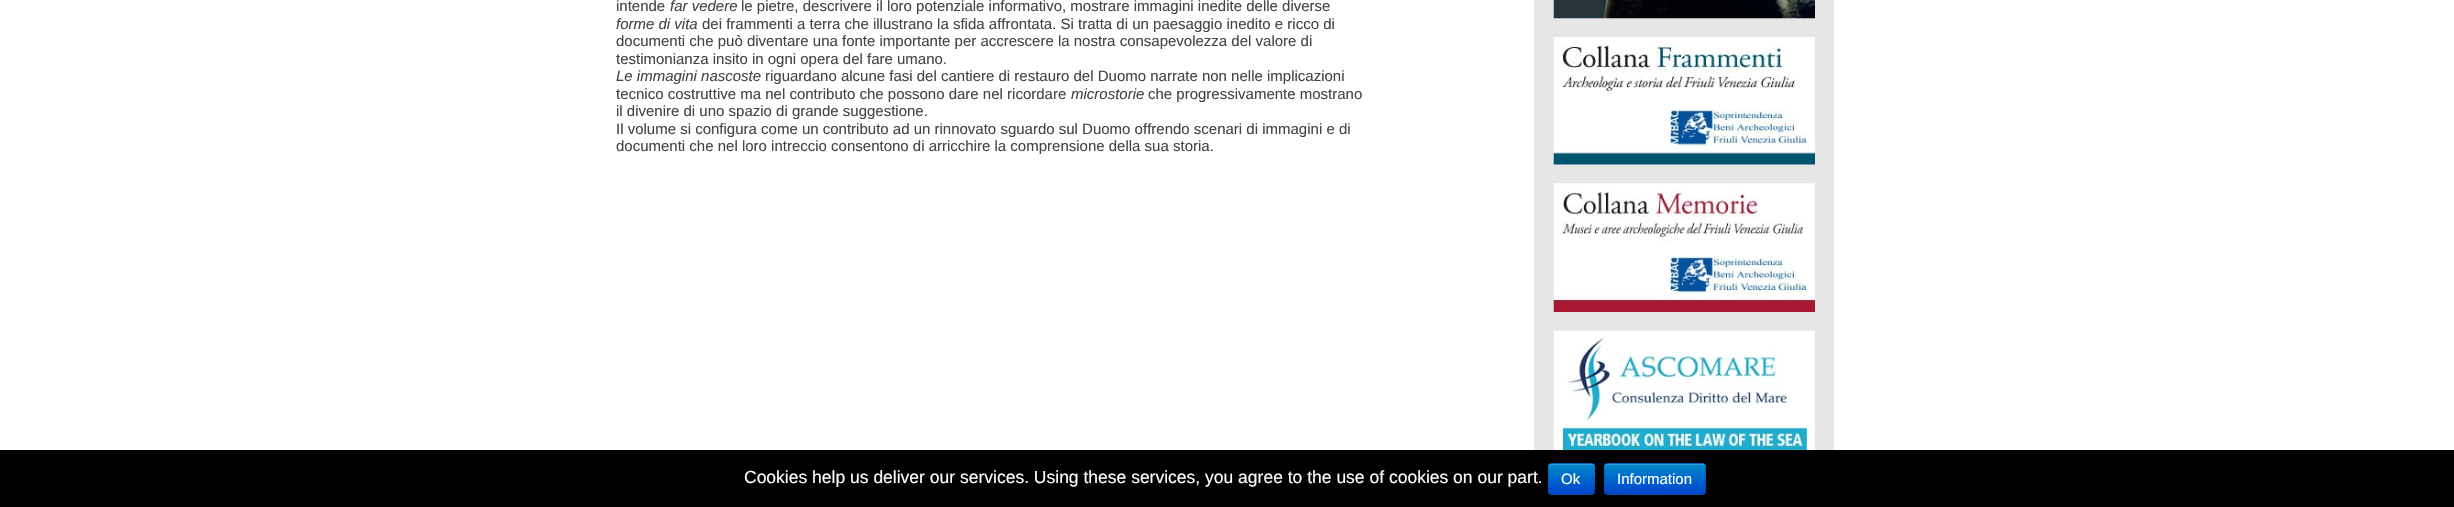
void draw(SkCanvas* canvas) {
	SkPaint fill;
	fill.setAntiAlias(true);
	auto makeFont = [&](const char* family, int weight, float size, bool italic = false) {
		SkFontStyle style(weight, SkFontStyle::kNormal_Width,
			italic ? SkFontStyle::kItalic_Slant : SkFontStyle::kUpright_Slant);
		SkFont result(fontMgr->matchFamilyStyle(family, style), size);
		result.setSubpixel(true);
		return result;
	};
	auto text = [&](const char* s, float x, float y, const SkFont& font) {
		canvas->drawString(s, x, y, font, fill);
	};
	auto box = [&](float l, float t, float r, float b) {
		canvas->drawRect(SkRect::MakeLTRB(l, t, r, b), fill);
	};
	auto roundBox = [&](float l, float t, float r, float b, float radius) {
		canvas->drawRoundRect(SkRect::MakeLTRB(l, t, r, b), radius, radius, fill);
	};
	auto picture = [&](const char* path, float l, float t, float r, float b) {
		auto image = SkImages::DeferredFromEncodedData(SkData::MakeFromFileName(path));
		canvas->drawImageRect(image, SkRect::MakeLTRB(l, t, r, b), SkSamplingOptions());
	};
	canvas->clear(0xFFFFFFFF);
	fill.setColor(0xFFE6E6E6);
	box(1534, 0, 1834, 450);
	picture("image0.png", 1553, 0, 1815, 19);
	picture("image1.png", 1553, 37, 1815, 165);
	picture("image2.png", 1553, 183, 1815, 312);
	picture("image3.png", 1553, 330, 1815, 450);
	fill.setColor(0xFF000000);
	box(0, 450, 2454, 507);
	fill.setColor(0xFF006DCC);
	roundBox(1548, 463, 1595, 495, 4);
	canvas->save();
	canvas->clipPath(SkPathBuilder().moveTo(1552, 463).lineTo(1591, 463).cubicTo(1593, 463, 1595, 465, 1595, 467).lineTo(1595, 491).cubicTo(1595, 493, 1593, 495, 1591, 495).lineTo(1552, 495).cubicTo(1550, 495, 1548, 493, 1548, 491).lineTo(1548, 467).cubicTo(1548, 465, 1550, 463, 1552, 463).close().detach(), true);
	{
		const SkColor colors[] = {0xFF0088CC, 0xFF0044CC};
		const float stops[] = {0, 1};
		const SkPoint ends[] = {{1571, 464}, {1571, 494}};
		fill.setShader(SkGradientShader::MakeLinear(ends, colors, stops, 2, SkTileMode::kClamp));
		fill.setAlpha(255);
	}
	box(1548, 464, 1595, 494);
	canvas->restore();
	fill.setShader(nullptr);
	fill.setColor(0xFF339FD6);
	canvas->drawPath(SkPathBuilder().moveTo(1551, 465).lineTo(1591, 465).cubicTo(1593, 465, 1594, 466, 1594, 468).cubicTo(1594, 462, 1590, 464, 1585, 464).lineTo(1558, 464).cubicTo(1553, 464, 1549, 462, 1549, 468).cubicTo(1549, 466, 1550, 465, 1551, 465).close().detach(), fill);
	fill.setStyle(SkPaint::kStroke_Style);
	fill.setStrokeWidth(1.2f);
	fill.setColor(0x40000000);
	canvas->drawPath(SkPathBuilder().moveTo(1593.5f, 493.5f).lineTo(1591, 494.5f).lineTo(1551, 494.5f).lineTo(1549, 493.5f).detach(), fill);
	fill.setColor(0x1A000000);
	canvas->drawPath(SkPathBuilder().moveTo(1549, 493.5f).cubicTo(1547, 491.5f, 1548, 481.5f, 1548, 479).cubicTo(1548, 464, 1544.5f, 463, 1558, 463).lineTo(1584.5f, 463).cubicTo(1598, 463, 1594.5f, 464, 1594.5f, 479).cubicTo(1594.5f, 481.5f, 1595.5f, 491.5f, 1593.5f, 493.5f).detach(), fill);
	fill.setStyle(SkPaint::kFill_Style);
	fill.setColor(0xFF006DCC);
	roundBox(1604, 463, 1706, 495, 4);
	canvas->save();
	canvas->clipPath(SkPathBuilder().moveTo(1608, 463).lineTo(1702, 463).cubicTo(1704, 463, 1706, 465, 1706, 467).lineTo(1706, 491).cubicTo(1706, 493, 1704, 495, 1702, 495).lineTo(1608, 495).cubicTo(1606, 495, 1604, 493, 1604, 491).lineTo(1604, 467).cubicTo(1604, 465, 1606, 463, 1608, 463).close().detach(), true);
	{
		const SkColor colors[] = {0xFF0088CC, 0xFF0044CC};
		const float stops[] = {0, 1};
		const SkPoint ends[] = {{1655, 464}, {1655, 494}};
		fill.setShader(SkGradientShader::MakeLinear(ends, colors, stops, 2, SkTileMode::kClamp));
		fill.setAlpha(255);
	}
	box(1604, 464, 1706, 494);
	canvas->restore();
	fill.setShader(nullptr);
	fill.setColor(0xFF339FD6);
	canvas->drawPath(SkPathBuilder().moveTo(1608, 465).lineTo(1702, 465).cubicTo(1704, 465, 1705, 466, 1705, 468).lineTo(1705, 466).cubicTo(1705, 465, 1704, 464, 1702, 464).lineTo(1608, 464).cubicTo(1606, 464, 1605, 465, 1605, 466).lineTo(1605, 468).cubicTo(1605, 466, 1606, 465, 1608, 465).close().detach(), fill);
	fill.setStyle(SkPaint::kStroke_Style);
	fill.setColor(0x40000000);
	canvas->drawPath(SkPathBuilder().moveTo(1704.5f, 493.5f).lineTo(1702.5f, 494.5f).lineTo(1686.5f, 494.5f).cubicTo(1678, 494.5f, 1607.5f, 495.5f, 1605.5f, 493.5f).detach(), fill);
	fill.setColor(0x1A000000);
	canvas->drawPath(SkPathBuilder().moveTo(1605.5f, 493.5f).cubicTo(1603, 491.5f, 1604.5f, 485.5f, 1604.5f, 483).cubicTo(1604.5f, 459.5f, 1600, 463, 1623.5f, 463).lineTo(1686.5f, 463).cubicTo(1708.5f, 463, 1705.5f, 459, 1705.5f, 479).cubicTo(1705.5f, 481.5f, 1707, 491.5f, 1704.5f, 493.5f).detach(), fill);
	auto font1 = makeFont("Liberation Sans", 400, 15);
	fill.setStyle(SkPaint::kFill_Style);
	fill.setColor(0xFF444444);
	text("intende", 616, 11, font1);
	auto font2 = makeFont("Liberation Sans", 400, 15, true);
	text("far vedere", 670, 11, font2);
	text("le pietre, descrivere il loro potenziale informativo, mostrare immagini inedite delle diverse", 741, 11, font1);
	text("forme di vita", 616, 29, font2);
	text("dei frammenti a terra che illustrano la sfida affrontata. Si tratta di un paesaggio inedito e ricco di", 702, 29, font1);
	text("documenti che può diventare una fonte importante per accrescere la nostra consapevolezza del valore di", 616, 46, font1);
	text("testimonianza insito in ogni opera del fare umano.", 616, 64, font1);
	text("Le immagini nascoste", 616, 81, font2);
	text("riguardano alcune fasi del cantiere di restauro del Duomo narrate non nelle implicazioni", 765, 81, font1);
	text("tecnico costruttive ma nel contributo che possono dare nel ricordare", 616, 99, font1);
	text("microstorie", 1071, 99, font2);
	text("che progressivamente mostrano", 1148, 99, font1);
	text("il divenire di uno spazio di grande suggestione.", 616, 116, font1);
	text("Il volume si configura come un contributo ad un rinnovato sguardo sul Duomo offrendo scenari di immagini e di", 616, 134, font1);
	text("documenti che nel loro intreccio consentono di arricchire la comprensione della sua storia.", 616, 151, font1);
	auto font3 = makeFont("Liberation Sans", 400, 17.5f);
	fill.setColor(0xFFFFFFFF);
	text("Cookies help us deliver our services. Using these services, you agree to the use of cookies on our part.", 744, 483, font3);
	text("Ok", 1561, 484, font1);
	text("Information", 1617, 484, font1);
}
